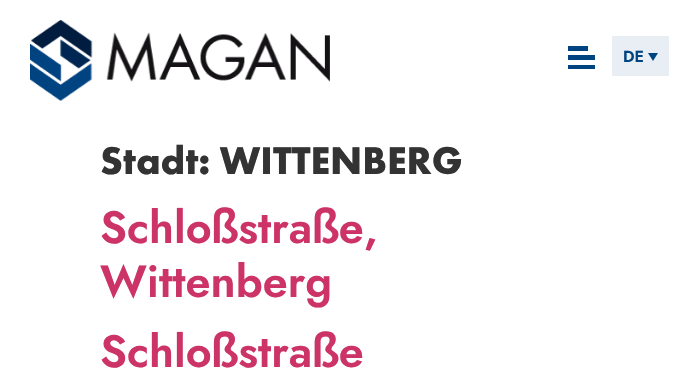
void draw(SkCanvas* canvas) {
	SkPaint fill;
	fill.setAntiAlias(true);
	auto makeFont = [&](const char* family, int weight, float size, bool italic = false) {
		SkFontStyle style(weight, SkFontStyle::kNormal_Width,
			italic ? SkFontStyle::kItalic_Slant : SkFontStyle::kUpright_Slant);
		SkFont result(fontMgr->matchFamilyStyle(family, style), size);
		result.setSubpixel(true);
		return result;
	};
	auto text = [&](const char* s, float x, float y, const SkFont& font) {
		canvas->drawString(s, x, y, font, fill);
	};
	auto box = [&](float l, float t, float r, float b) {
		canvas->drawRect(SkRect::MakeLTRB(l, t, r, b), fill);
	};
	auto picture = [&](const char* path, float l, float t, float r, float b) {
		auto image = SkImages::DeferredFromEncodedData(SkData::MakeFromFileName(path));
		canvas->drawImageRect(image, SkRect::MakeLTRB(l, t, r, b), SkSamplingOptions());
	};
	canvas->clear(0xFFFFFFFF);
	picture("image0.png", 30, 20, 330, 101);
	fill.setColor(0xFF004381);
	box(568, 46, 588, 51);
	box(568, 55, 595, 60);
	box(568, 65, 595, 69);
	fill.setColor(0xFFE8EEF4);
	box(612, 36, 669, 76);
	fill.setColor(0xFF004381);
	canvas->drawPath(SkPathBuilder().moveTo(648, 53).lineTo(658, 53).lineTo(653, 61).close().detach(), fill);
	auto font1 = makeFont("Jost", 600, 16);
	text("DE", 623, 62, font1);
	auto font2 = makeFont("Futura PT", 700, 40);
	fill.setColor(0xFF333333);
	text("Stadt: WITTENBERG", 100, 174, font2);
	auto font3 = makeFont("Jost", 600, 45);
	fill.setColor(0xFFCC3366);
	text("Schloßstraße,", 100, 243, font3);
	text("Wittenberg", 100, 297, font3);
	text("Schloßstraße", 100, 367, font3);
}
